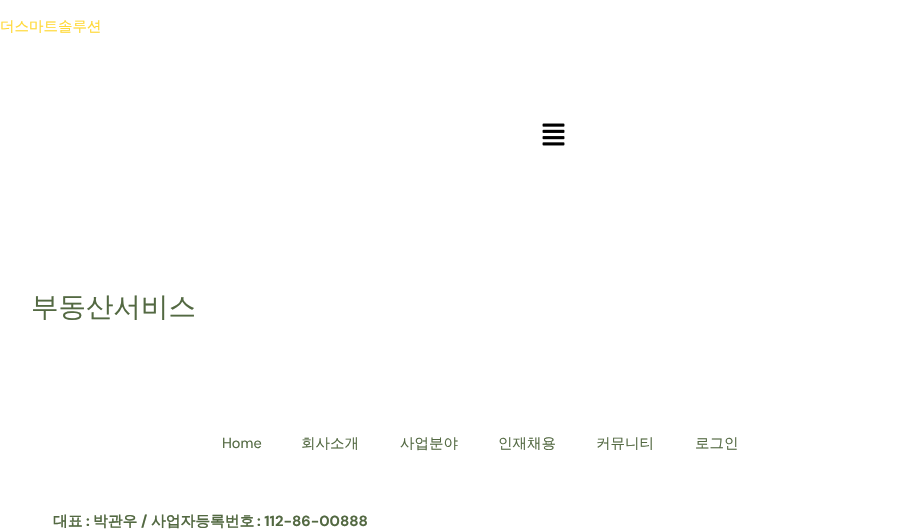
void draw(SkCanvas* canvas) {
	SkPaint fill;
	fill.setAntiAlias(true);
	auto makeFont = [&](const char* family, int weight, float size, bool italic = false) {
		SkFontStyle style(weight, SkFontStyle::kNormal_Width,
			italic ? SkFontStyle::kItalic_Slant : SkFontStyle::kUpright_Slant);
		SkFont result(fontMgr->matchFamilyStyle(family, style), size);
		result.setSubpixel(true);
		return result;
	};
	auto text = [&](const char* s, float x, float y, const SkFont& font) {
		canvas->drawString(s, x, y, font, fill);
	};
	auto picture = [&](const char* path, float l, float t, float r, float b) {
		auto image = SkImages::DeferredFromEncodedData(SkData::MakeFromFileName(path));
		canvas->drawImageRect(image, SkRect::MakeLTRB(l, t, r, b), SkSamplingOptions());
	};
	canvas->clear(0xFFFFFFFF);
	picture("image0.png", 542, 123, 565, 146);
	auto font1 = makeFont("WenQuanYi Zen Hei", 500, 14.5f);
	fill.setColor(0xFFFFD936);
	text("더스마트솔루션", 0, 31, font1);
	auto font2 = makeFont("WenQuanYi Zen Hei", 500, 27.5f);
	fill.setColor(0xFF536942);
	text("부동산서비스", 31, 316, font2);
	auto font3 = makeFont("DM Sans", 400, 14.5f);
	text("Home", 222, 448, font3);
	text("회사소개", 301, 448, font1);
	text("사업분야", 400, 448, font1);
	text("인재채용", 498, 448, font1);
	text("커뮤니티", 596, 448, font1);
	text("로그인", 695, 448, font1);
	auto font4 = makeFont("WenQuanYi Zen Hei", 700, 14.75f);
	text("대표", 53, 526, font4);
	auto font5 = makeFont("DM Sans", 700, 14.75f);
	text(":", 86, 526, font5);
	text("박관우", 93, 526, font4);
	text("/", 141, 526, font5);
	text("사업자등록번호", 151, 526, font4);
	text(": 112-86-00888", 257, 526, font5);
}
